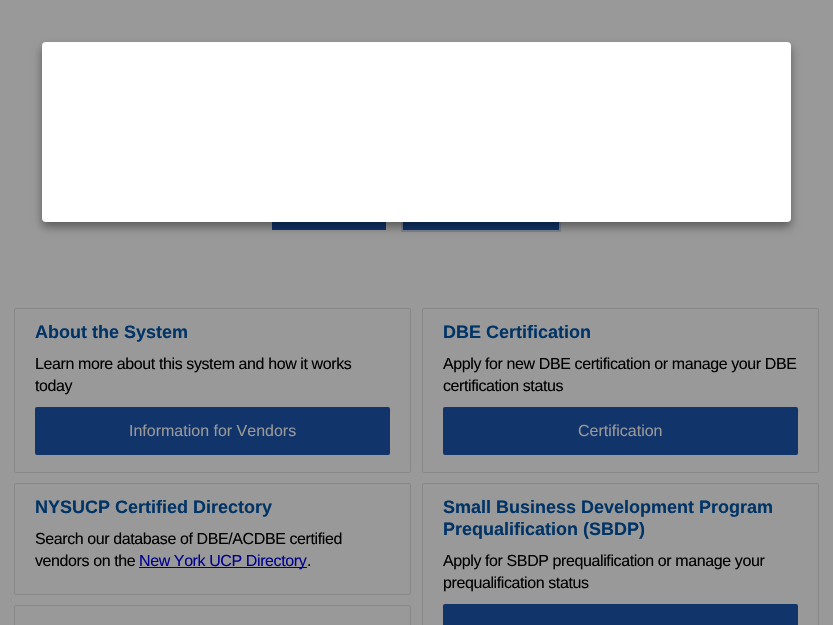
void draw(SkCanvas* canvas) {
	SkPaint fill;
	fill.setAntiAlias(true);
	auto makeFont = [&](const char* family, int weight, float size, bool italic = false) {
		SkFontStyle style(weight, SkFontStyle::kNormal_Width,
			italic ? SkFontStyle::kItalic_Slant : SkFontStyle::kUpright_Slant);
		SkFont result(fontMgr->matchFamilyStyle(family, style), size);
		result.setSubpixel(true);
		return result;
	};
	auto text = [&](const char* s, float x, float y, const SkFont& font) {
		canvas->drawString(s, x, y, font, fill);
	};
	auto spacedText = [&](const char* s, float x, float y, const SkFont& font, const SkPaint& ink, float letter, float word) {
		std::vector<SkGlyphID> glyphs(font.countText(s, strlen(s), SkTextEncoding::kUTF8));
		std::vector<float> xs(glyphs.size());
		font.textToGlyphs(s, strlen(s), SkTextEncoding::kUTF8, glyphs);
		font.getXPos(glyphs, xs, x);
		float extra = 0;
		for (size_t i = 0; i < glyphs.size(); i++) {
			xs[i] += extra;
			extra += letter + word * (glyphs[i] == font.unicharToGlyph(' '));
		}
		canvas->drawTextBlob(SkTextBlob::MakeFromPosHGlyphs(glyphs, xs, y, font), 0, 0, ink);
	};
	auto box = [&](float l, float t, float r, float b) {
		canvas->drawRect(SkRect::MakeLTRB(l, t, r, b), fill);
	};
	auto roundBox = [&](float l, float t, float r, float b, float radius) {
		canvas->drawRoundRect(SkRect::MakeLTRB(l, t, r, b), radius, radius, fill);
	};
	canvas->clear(0xFF999999);
	fill.setColor(0xFF11346B);
	box(272, 222, 386, 230);
	box(403, 222, 559, 230);
	fill.setStyle(SkPaint::kStroke_Style);
	fill.setStrokeWidth(2);
	fill.setColor(0xFF7E8590);
	canvas->drawRect(SkRect::MakeLTRB(402, 176, 560, 231), fill);
	fill.setStyle(SkPaint::kFill_Style);
	fill.setColor(0x66000000);
	fill.setMaskFilter(SkMaskFilter::MakeBlur(kNormal_SkBlurStyle, 5));
	canvas->drawRoundRect(SkRect::MakeLTRB(42, 47, 791, 227), 4, 4, fill);
	fill.setMaskFilter(nullptr);
	fill.setColor(0xFFFFFFFF);
	roundBox(42, 42, 791, 222, 4);
	fill.setStyle(SkPaint::kStroke_Style);
	fill.setStrokeWidth(1);
	fill.setColor(0xFF878787);
	canvas->drawRoundRect(SkRect::MakeLTRB(14.5f, 308.5f, 410.5f, 472.5f), 1.5f, 1.5f, fill);
	fill.setStyle(SkPaint::kFill_Style);
	fill.setColor(0xFF11346B);
	roundBox(35, 407, 390, 455, 2);
	fill.setStyle(SkPaint::kStroke_Style);
	fill.setColor(0xFF878787);
	canvas->drawRoundRect(SkRect::MakeLTRB(422.5f, 308.5f, 818.5f, 472.5f), 1.5f, 1.5f, fill);
	fill.setStyle(SkPaint::kFill_Style);
	fill.setColor(0xFF11346B);
	roundBox(443, 407, 798, 455, 2);
	fill.setStyle(SkPaint::kStroke_Style);
	fill.setColor(0xFF878787);
	canvas->drawRoundRect(SkRect::MakeLTRB(14.5f, 483.5f, 410.5f, 594.5f), 1.5f, 1.5f, fill);
	fill.setStyle(SkPaint::kFill_Style);
	fill.setColor(0xFF00008F);
	box(139, 567, 307, 568);
	fill.setStyle(SkPaint::kStroke_Style);
	fill.setColor(0xFF878787);
	canvas->drawRoundRect(SkRect::MakeLTRB(422.5f, 483.5f, 818.5f, 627.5f), 1.5f, 1.5f, fill);
	fill.setStyle(SkPaint::kFill_Style);
	fill.setColor(0xFF11346B);
	roundBox(443, 604, 798, 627, 2);
	fill.setStyle(SkPaint::kStroke_Style);
	fill.setColor(0xFF878787);
	canvas->drawRoundRect(SkRect::MakeLTRB(14.5f, 605.5f, 410.5f, 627.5f), 1.5f, 1.5f, fill);
	auto font1 = makeFont("Liberation Sans", 700, 18);
	fill.setStyle(SkPaint::kFill_Style);
	fill.setColor(0xFF003366);
	text("About the System", 35, 338, font1);
	auto font2 = makeFont("Liberation Sans", 400, 16);
	fill.setColor(0xFF000000);
	spacedText("Learn more about this system and how it works", 35, 369, font2, fill, -0.4f, 0);
	spacedText("today", 35, 391, font2, fill, -0.4f, 0);
	fill.setColor(0xFF999999);
	text("Information for Vendors", 129, 436, font2);
	fill.setColor(0xFF003366);
	text("DBE Certification", 443, 338, font1);
	fill.setColor(0xFF000000);
	spacedText("Apply for new DBE certification or manage your DBE", 443, 369, font2, fill, -0.4f, 0);
	spacedText("certification status", 443, 391, font2, fill, -0.4f, 0);
	fill.setColor(0xFF999999);
	text("Certification", 578, 436, font2);
	fill.setColor(0xFF003366);
	text("NYSUCP Certified Directory", 35, 513, font1);
	fill.setColor(0xFF000000);
	spacedText("Search our database of DBE/ACDBE certified", 35, 544, font2, fill, -0.4f, 0);
	spacedText("vendors on the", 35, 566, font2, fill, -0.4f, 0);
	fill.setColor(0xFF00008F);
	spacedText("New York UCP Directory", 139, 566, font2, fill, -0.4f, 0);
	fill.setColor(0xFF000000);
	spacedText(".", 307, 566, font2, fill, -0.4f, 0);
	fill.setColor(0xFF003366);
	text("Small Business Development Program", 443, 513, font1);
	text("Prequalification (SBDP)", 443, 535, font1);
	fill.setColor(0xFF000000);
	spacedText("Apply for SBDP prequalification or manage your", 443, 566, font2, fill, -0.4f, 0);
	spacedText("prequalification status", 443, 588, font2, fill, -0.4f, 0);
}
